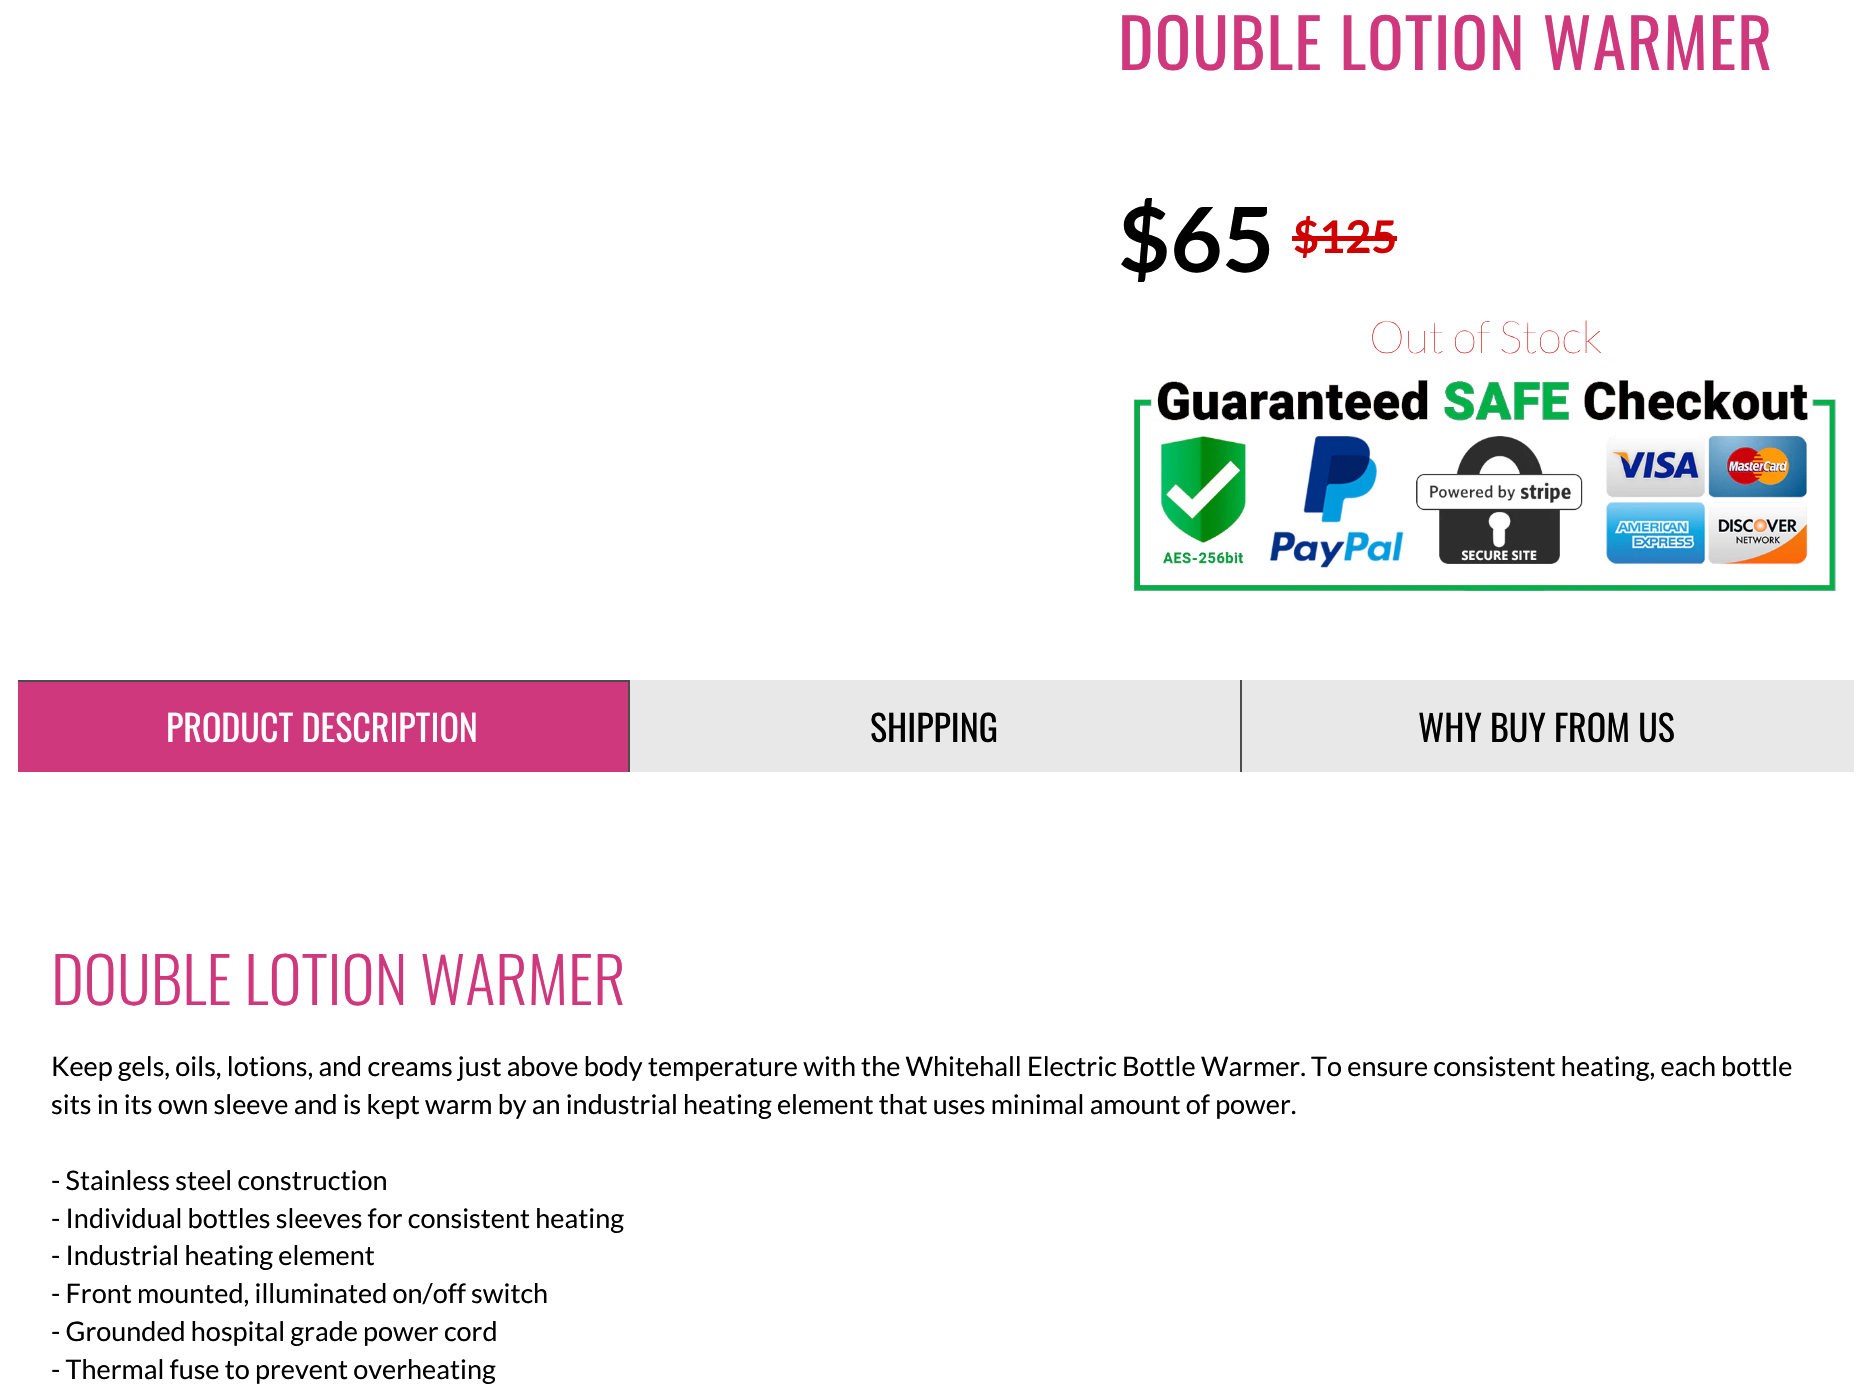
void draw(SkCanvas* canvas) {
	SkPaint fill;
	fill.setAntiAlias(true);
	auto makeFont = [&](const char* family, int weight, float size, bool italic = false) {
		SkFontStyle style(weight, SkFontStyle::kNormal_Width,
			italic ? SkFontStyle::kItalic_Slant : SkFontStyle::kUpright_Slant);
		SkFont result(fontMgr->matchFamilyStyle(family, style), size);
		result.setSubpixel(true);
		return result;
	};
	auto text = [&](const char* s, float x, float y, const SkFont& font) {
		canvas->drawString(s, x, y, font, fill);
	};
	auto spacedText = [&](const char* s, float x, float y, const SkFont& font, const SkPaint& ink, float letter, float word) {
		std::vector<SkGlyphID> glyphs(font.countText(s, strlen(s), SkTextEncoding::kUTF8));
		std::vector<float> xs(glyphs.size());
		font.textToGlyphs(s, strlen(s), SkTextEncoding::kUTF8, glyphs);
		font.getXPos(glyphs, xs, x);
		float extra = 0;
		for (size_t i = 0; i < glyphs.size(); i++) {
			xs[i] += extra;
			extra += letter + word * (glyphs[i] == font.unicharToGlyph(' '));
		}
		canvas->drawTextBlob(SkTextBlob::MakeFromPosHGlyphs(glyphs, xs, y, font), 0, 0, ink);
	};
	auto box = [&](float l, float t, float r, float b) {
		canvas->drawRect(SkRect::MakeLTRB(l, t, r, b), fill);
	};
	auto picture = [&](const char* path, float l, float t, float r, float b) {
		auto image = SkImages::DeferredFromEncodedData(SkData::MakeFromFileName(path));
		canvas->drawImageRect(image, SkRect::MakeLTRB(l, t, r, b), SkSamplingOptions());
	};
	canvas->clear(0xFFFFFFFF);
	fill.setColor(0xFFCF0000);
	box(1292, 236, 1397, 241);
	picture("image0.png", 1132, 380, 1837, 592);
	fill.setColor(0xFFE8E8E8);
	box(630, 680, 1854, 772);
	fill.setColor(0xFFD0387E);
	box(18, 682, 628, 772);
	fill.setColor(0xFF4C4C4C);
	box(18, 680, 630, 682);
	box(628, 680, 630, 772);
	box(1240, 680, 1242, 772);
	auto font1 = makeFont("Oswald", 400, 67.5f);
	fill.setColor(0xFFD0387E);
	spacedText("DOUBLE LOTION WARMER", 1118, 70, font1, fill, 1.1f, 0);
	auto font2 = makeFont("Lato", 700, 90);
	fill.setColor(0xFF000000);
	text("$65", 1118, 272, font2);
	auto font3 = makeFont("Lato", 700, 45);
	fill.setColor(0xFFCF0000);
	text("$125", 1293, 253, font3);
	auto font4 = makeFont("Lato", 100, 45);
	text("Out of Stock", 1369, 353, font4);
	auto font5 = makeFont("Oswald", 400, 36);
	fill.setColor(0xFFFFFFFF);
	text("PRODUCT DESCRIPTION", 166, 742, font5);
	fill.setColor(0xFF000000);
	text("SHIPPING", 870, 742, font5);
	text("WHY BUY FROM US", 1418, 742, font5);
	auto font6 = makeFont("Oswald", 300, 63);
	fill.setColor(0xFFD0387E);
	text("DOUBLE LOTION WARMER", 51, 1005, font6);
	auto font7 = makeFont("Lato", 400, 27);
	fill.setColor(0xFF000000);
	text("Keep gels, oils, lotions, and creams just above body temperature with the Whitehall Electric Bottle Warmer. To ensure consistent heating, each bottle", 51, 1076, font7);
	text("sits in its own sleeve and is kept warm by an industrial heating element that uses minimal amount of power.", 51, 1114, font7);
	text("- Stainless steel construction", 51, 1190, font7);
	text("- Individual bottles sleeves for consistent heating", 51, 1228, font7);
	text("- Industrial heating element", 51, 1265, font7);
	text("- Front mounted, illuminated on/off switch", 51, 1303, font7);
	text("- Grounded hospital grade power cord", 51, 1341, font7);
	text("- Thermal fuse to prevent overheating", 51, 1379, font7);
}
